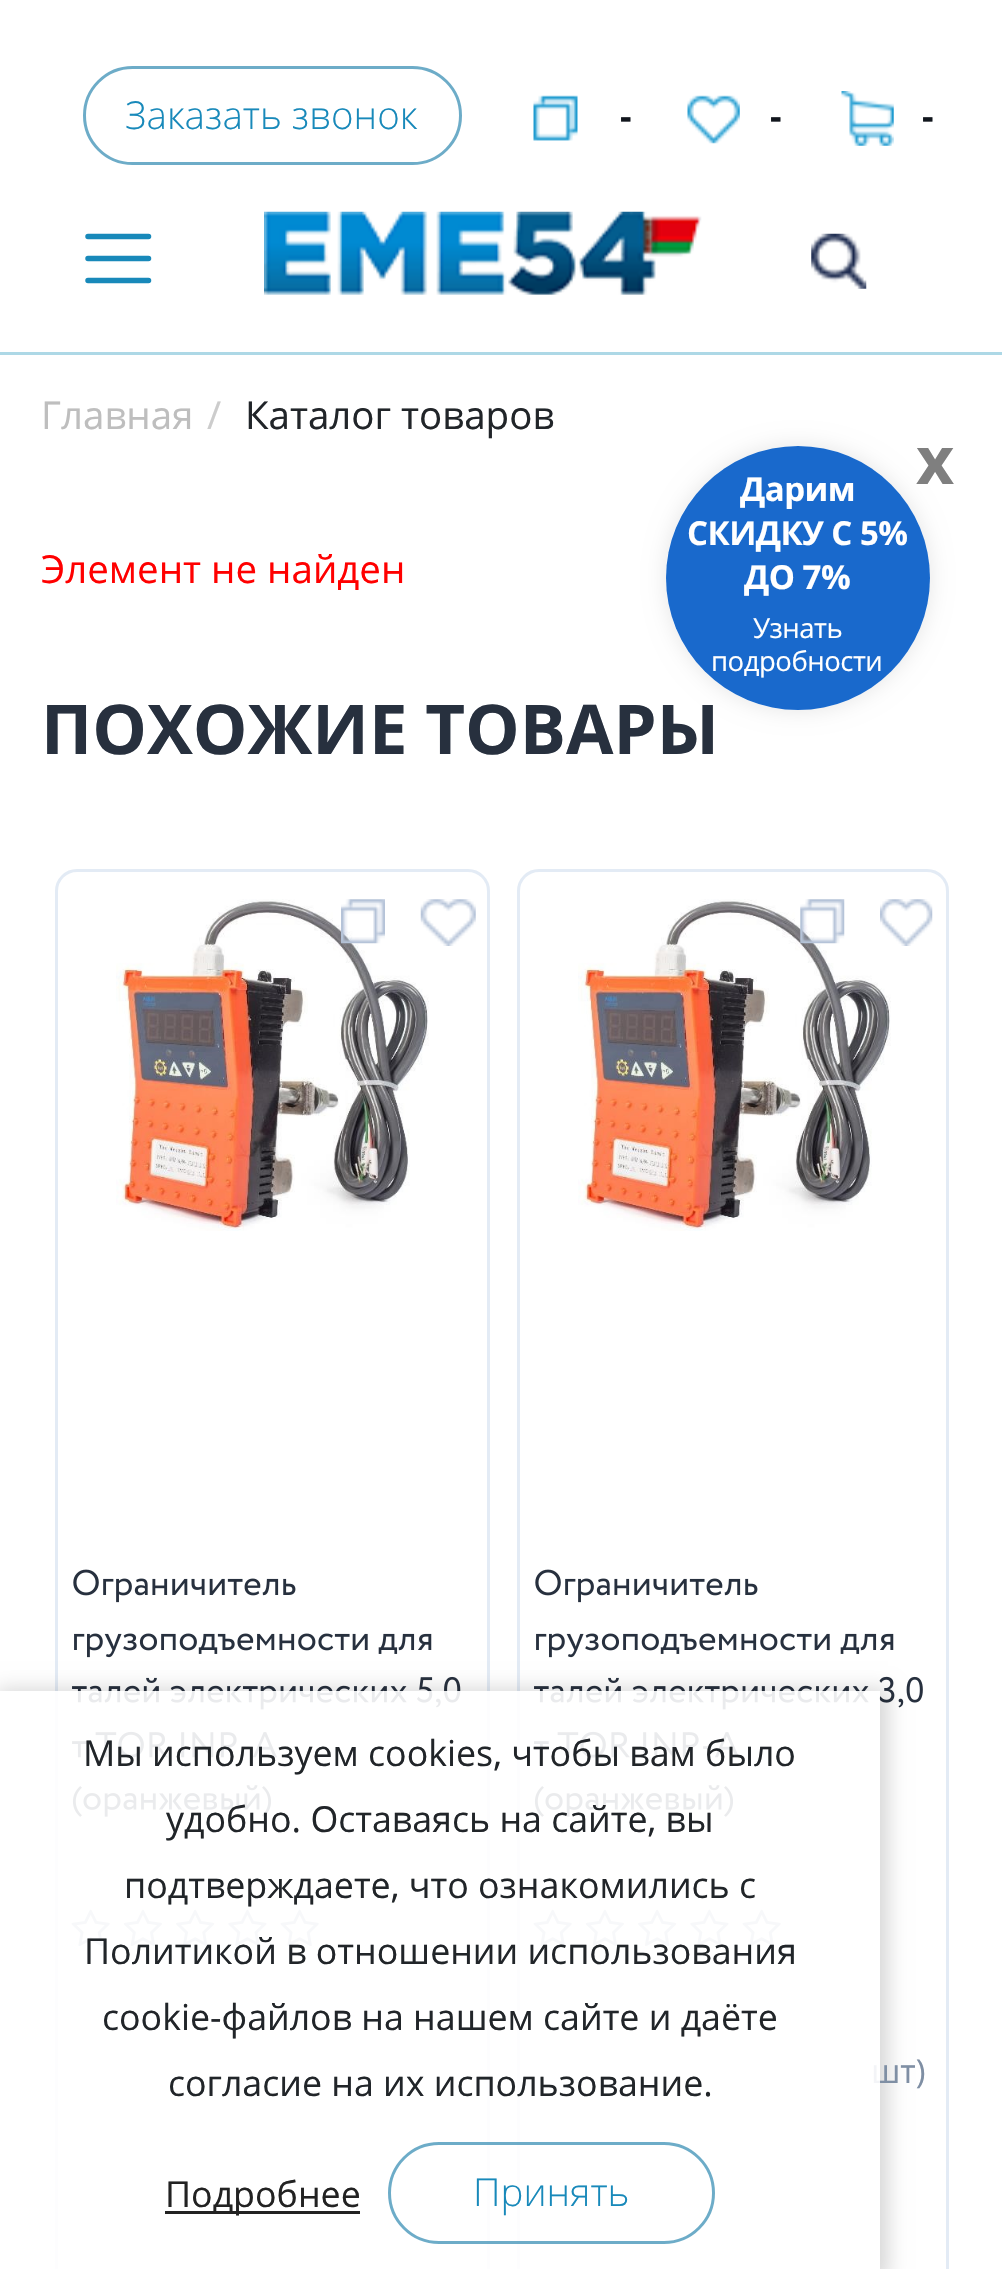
void draw(SkCanvas* canvas) {
	SkPaint fill;
	fill.setAntiAlias(true);
	auto makeFont = [&](const char* family, int weight, float size, bool italic = false) {
		SkFontStyle style(weight, SkFontStyle::kNormal_Width,
			italic ? SkFontStyle::kItalic_Slant : SkFontStyle::kUpright_Slant);
		SkFont result(fontMgr->matchFamilyStyle(family, style), size);
		result.setSubpixel(true);
		return result;
	};
	auto text = [&](const char* s, float x, float y, const SkFont& font) {
		canvas->drawString(s, x, y, font, fill);
	};
	auto spacedText = [&](const char* s, float x, float y, const SkFont& font, const SkPaint& ink, float letter, float word) {
		std::vector<SkGlyphID> glyphs(font.countText(s, strlen(s), SkTextEncoding::kUTF8));
		std::vector<float> xs(glyphs.size());
		font.textToGlyphs(s, strlen(s), SkTextEncoding::kUTF8, glyphs);
		font.getXPos(glyphs, xs, x);
		float extra = 0;
		for (size_t i = 0; i < glyphs.size(); i++) {
			xs[i] += extra;
			extra += letter + word * (glyphs[i] == font.unicharToGlyph(' '));
		}
		canvas->drawTextBlob(SkTextBlob::MakeFromPosHGlyphs(glyphs, xs, y, font), 0, 0, ink);
	};
	auto box = [&](float l, float t, float r, float b) {
		canvas->drawRect(SkRect::MakeLTRB(l, t, r, b), fill);
	};
	auto picture = [&](const char* path, float l, float t, float r, float b) {
		auto image = SkImages::DeferredFromEncodedData(SkData::MakeFromFileName(path));
		canvas->drawImageRect(image, SkRect::MakeLTRB(l, t, r, b), SkSamplingOptions());
	};
	canvas->clear(0xFFFFFFFF);
	fill.setColor(0xFFADD8E6);
	box(0, 352, 1002, 355);
	fill.setStyle(SkPaint::kStroke_Style);
	fill.setStrokeWidth(3);
	fill.setColor(0xFF6DACC8);
	canvas->drawRoundRect(SkRect::MakeLTRB(84.5f, 67.5f, 460.5f, 163.5f), 48, 48, fill);
	picture("image0.png", 533, 95, 578, 141);
	picture("image1.png", 687, 95, 740, 144);
	picture("image2.png", 841, 91, 894, 146);
	fill.setStrokeWidth(5.5f);
	fill.setStrokeCap(SkPaint::kRound_Cap);
	fill.setColor(0xFF1889BA);
	canvas->drawPath(SkPathBuilder().moveTo(88, 236.5f).lineTo(148.5f, 236.5f).moveTo(88, 258.5f).lineTo(148.5f, 258.5f).moveTo(88, 280.5f).lineTo(148.5f, 280.5f).detach(), fill);
	picture("image3.png", 264, 211, 702, 295);
	picture("image4.png", 811, 233, 867, 289);
	fill.setStrokeWidth(3);
	fill.setStrokeCap(SkPaint::kButt_Cap);
	fill.setColor(0xFFE3EBF5);
	canvas->drawRoundRect(SkRect::MakeLTRB(56.5f, 870.5f, 488.5f, 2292.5f), 20.5f, 20.5f, fill);
	picture("image5.png", 116, 899, 429, 1231);
	picture("image6.png", 341, 899, 385, 944);
	picture("image7.png", 420, 899, 476, 946);
	picture("image8.png", 73, 1569, 296, 1603);
	picture("image9.png", 74, 1633, 432, 1658);
	picture("image10.png", 72, 1676, 461, 1710);
	picture("image11.png", 72, 1731, 277, 1758);
	picture("image12.png", 72, 1785, 272, 1817);
	picture("image13.png", 71, 1909, 110, 1947);
	picture("image14.png", 123, 1909, 162, 1947);
	picture("image15.png", 176, 1909, 215, 1947);
	picture("image16.png", 228, 1909, 267, 1947);
	picture("image13.png", 280, 1909, 319, 1947);
	canvas->drawRoundRect(SkRect::MakeLTRB(518.5f, 870.5f, 947.5f, 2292.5f), 20.5f, 20.5f, fill);
	picture("image5.png", 578, 899, 891, 1231);
	picture("image17.png", 800, 899, 845, 944);
	picture("image18.png", 880, 899, 933, 946);
	picture("image8.png", 535, 1569, 758, 1603);
	picture("image9.png", 536, 1633, 894, 1658);
	picture("image19.png", 534, 1676, 923, 1710);
	picture("image11.png", 534, 1731, 739, 1758);
	picture("image12.png", 534, 1785, 734, 1817);
	picture("image13.png", 533, 1909, 572, 1947);
	picture("image14.png", 585, 1909, 624, 1947);
	picture("image15.png", 638, 1909, 677, 1947);
	picture("image16.png", 690, 1909, 729, 1947);
	picture("image13.png", 742, 1909, 781, 1947);
	canvas->save();
	canvas->clipPath(SkPathBuilder(SkPathFillType::kEvenOdd).moveTo(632, 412).lineTo(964, 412).lineTo(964, 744).lineTo(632, 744).close().moveTo(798, 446).cubicTo(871, 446, 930, 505, 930, 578).cubicTo(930, 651, 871, 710, 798, 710).cubicTo(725, 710, 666, 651, 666, 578).cubicTo(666, 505, 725, 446, 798, 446).close().detach(), true);
	fill.setStyle(SkPaint::kFill_Style);
	fill.setColor(0x1A000000);
	fill.setMaskFilter(SkMaskFilter::MakeBlur(kNormal_SkBlurStyle, 11));
	canvas->drawRoundRect(SkRect::MakeLTRB(666, 446, 930, 710), 132, 132, fill);
	fill.setMaskFilter(nullptr);
	canvas->restore();
	canvas->save();
	canvas->clipPath(SkPathBuilder(SkPathFillType::kEvenOdd).moveTo(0, 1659).lineTo(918, 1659).lineTo(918, 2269).lineTo(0, 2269).close().moveTo(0, 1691).lineTo(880, 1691).lineTo(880, 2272).lineTo(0, 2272).close().detach(), true);
	fill.setColor(0x29000000);
	fill.setMaskFilter(SkMaskFilter::MakeBlur(kNormal_SkBlurStyle, 9.5f));
	canvas->drawRect(SkRect::MakeLTRB(-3, 1689, 888, 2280), fill);
	fill.setMaskFilter(nullptr);
	canvas->restore();
	auto font1 = makeFont("Open Sans", 300, 38.5f);
	fill.setColor(0xFF1889BA);
	text("Заказать звонок", 125, 129, font1);
	auto font2 = makeFont("Open Sans", 700, 35.75f);
	fill.setColor(0xFF11161D);
	text("-", 620, 129, font2);
	text("-", 770, 129, font2);
	text("-", 922, 129, font2);
	auto font3 = makeFont("Open Sans", 400, 38.5f);
	fill.setColor(0xFFBEBEBE);
	text("Главная", 41, 429, font3);
	fill.setColor(0xFFCCCCCC);
	text("/", 207, 429, font3);
	fill.setColor(0xFF212529);
	text("Каталог товаров", 245, 429, font3);
	fill.setColor(0xFFFF0000);
	text("Элемент не найден", 41, 583, font3);
	auto font4 = makeFont("Open Sans", 700, 68.75f);
	fill.setColor(0xFF27303E);
	text("ПОХОЖИЕ ТОВАРЫ", 41, 754, font4);
	auto font5 = makeFont("Open Sans", 400, 33);
	fill.setColor(0xFF7F8FA4);
	text("шт)", 871, 2083, font5);
	fill.setColor(0xE60059C7);
	canvas->drawCircle(798, 578, 132, fill);
	auto font6 = makeFont("Open Sans", 700, 66);
	fill.setColor(0xFF7F7F7F);
	text("x", 916, 484, font6);
	auto font7 = makeFont("Open Sans", 700, 33);
	fill.setColor(0xFFFFFFFF);
	spacedText("Дарим", 740, 501, font7, fill, -0.5f, 0);
	spacedText("СКИДКУ C 5%", 687, 545, font7, fill, -0.5f, 0);
	spacedText("ДО 7%", 744, 589, font7, fill, -0.5f, 0);
	auto font8 = makeFont("Open Sans", 400, 27.5f);
	spacedText("Узнать", 753, 638, font8, fill, -0.5f, 0);
	spacedText("подробности", 711, 671, font8, fill, -0.5f, 0);
	fill.setColor(0xE6FFFFFF);
	box(0, 1691, 880, 2269);
	auto font9 = makeFont("Open Sans", 400, 35.75f);
	fill.setColor(0xFF212529);
	text("Мы используем cookies, чтобы вам было", 83, 1766, font9);
	text("удобно. Оставаясь на сайте, вы", 166, 1832, font9);
	text("подтверждаете, что ознакомились с", 124, 1898, font9);
	text("Политикой в отношении использования", 84, 1964, font9);
	text("cookie-файлов на нашем сайте и даёте", 102, 2030, font9);
	text("согласие на их использование.", 168, 2096, font9);
	fill.setColor(0xFF222222);
	box(165, 2211, 360, 2214);
	text("Подробнее", 165, 2207, font9);
	fill.setStyle(SkPaint::kStroke_Style);
	fill.setColor(0xA61F80AA);
	canvas->drawRoundRect(SkRect::MakeLTRB(389.5f, 2143.5f, 713.5f, 2242.5f), 49.5f, 49.5f, fill);
	fill.setStyle(SkPaint::kFill_Style);
	fill.setColor(0xFF1889BA);
	text("Принять", 473, 2206, font1);
}
